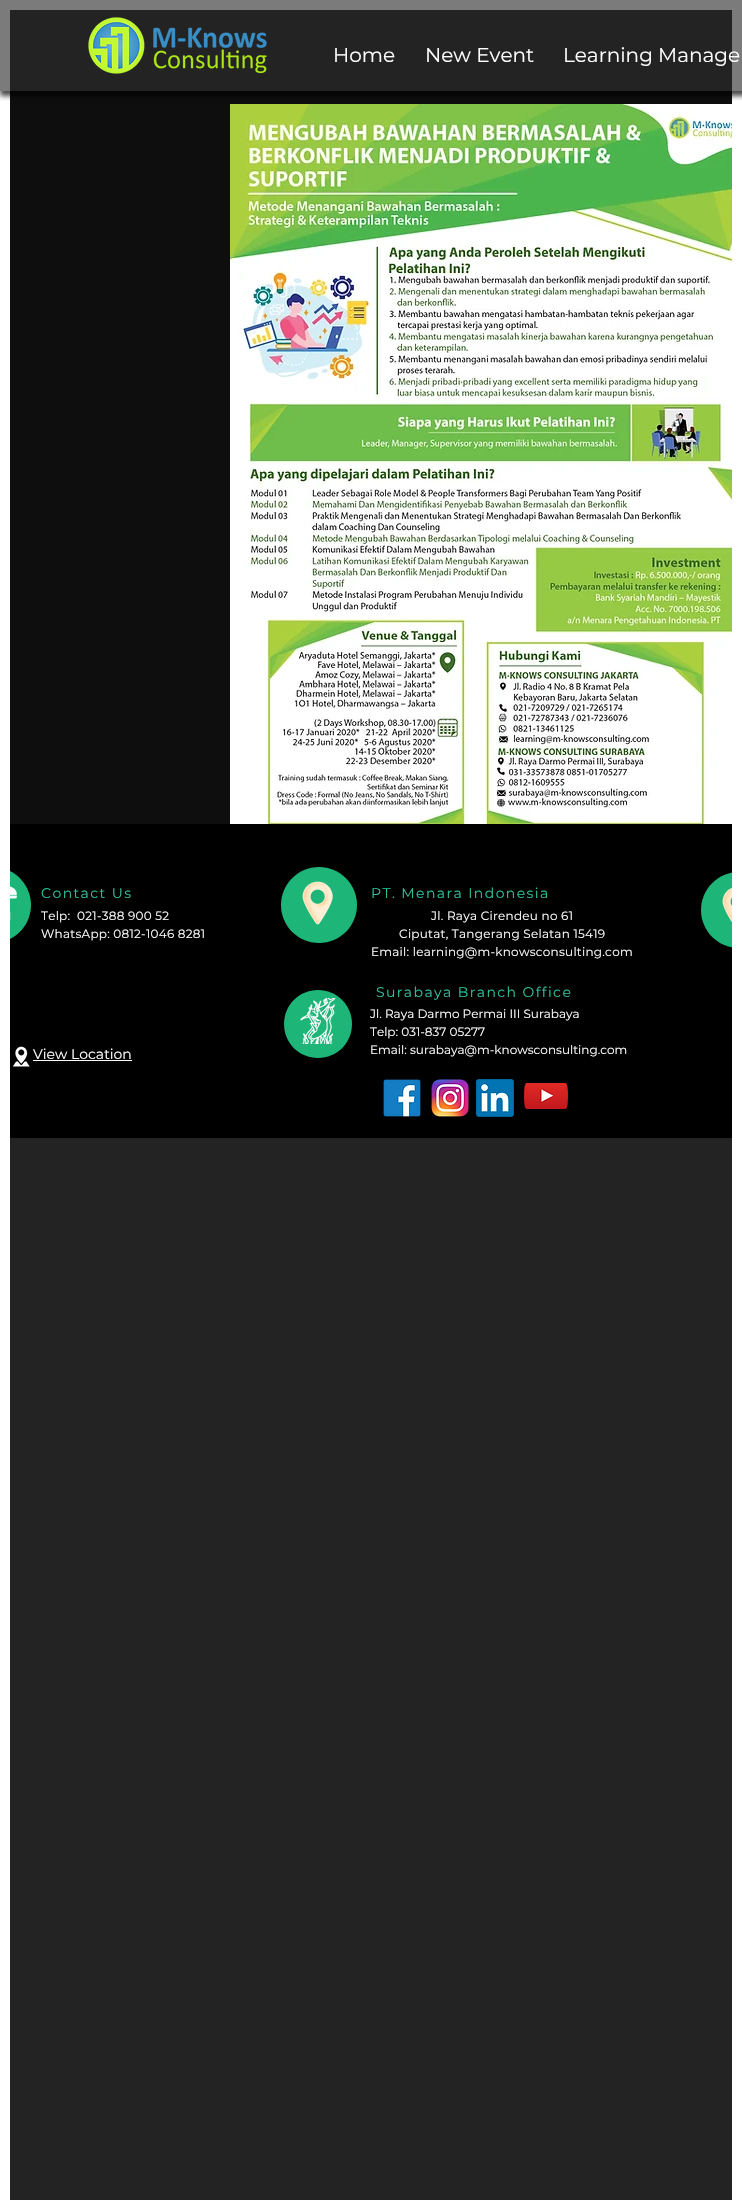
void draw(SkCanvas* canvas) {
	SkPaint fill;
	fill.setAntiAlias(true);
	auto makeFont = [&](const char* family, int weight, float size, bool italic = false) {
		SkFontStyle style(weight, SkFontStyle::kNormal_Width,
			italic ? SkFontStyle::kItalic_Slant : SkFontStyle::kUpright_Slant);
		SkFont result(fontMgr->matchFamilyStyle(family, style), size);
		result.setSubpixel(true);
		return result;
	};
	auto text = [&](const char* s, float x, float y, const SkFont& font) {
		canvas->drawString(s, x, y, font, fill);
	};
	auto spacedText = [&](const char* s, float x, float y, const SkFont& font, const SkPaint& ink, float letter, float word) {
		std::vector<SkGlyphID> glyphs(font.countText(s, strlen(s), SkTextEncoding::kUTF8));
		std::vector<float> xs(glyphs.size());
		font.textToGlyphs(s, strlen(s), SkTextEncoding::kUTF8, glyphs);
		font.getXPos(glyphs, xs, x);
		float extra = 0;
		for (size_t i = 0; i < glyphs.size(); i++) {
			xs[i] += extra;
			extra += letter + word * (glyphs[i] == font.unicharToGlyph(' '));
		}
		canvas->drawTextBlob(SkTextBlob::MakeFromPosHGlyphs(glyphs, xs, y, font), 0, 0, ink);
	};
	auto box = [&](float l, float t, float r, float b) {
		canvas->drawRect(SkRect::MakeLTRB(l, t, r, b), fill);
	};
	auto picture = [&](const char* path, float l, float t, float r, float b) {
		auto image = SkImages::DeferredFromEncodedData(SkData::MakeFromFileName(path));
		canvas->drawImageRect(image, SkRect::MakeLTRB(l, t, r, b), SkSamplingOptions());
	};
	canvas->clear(0xFF232323);
	fill.setColor(0xFF000000);
	box(10, 824, 732, 1138);
	fill.setColor(0xFF1DB578);
	canvas->drawPath(SkPathBuilder().moveTo(31, 905).cubicTo(31, 926, 14, 943, -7, 943).cubicTo(-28, 943, -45, 926, -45, 905).cubicTo(-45, 884, -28, 867, -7, 867).cubicTo(14, 867, 31, 884, 31, 905).close().detach(), fill);
	fill.setColor(0xFFFFFFFF);
	box(0, 91, 10, 2210);
	fill.setColor(0xFF7B7B7B);
	box(0, 0, 10, 91);
	box(10, 0, 732, 10);
	fill.setColor(0xFF1DB578);
	canvas->drawPath(SkPathBuilder().moveTo(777, 910).cubicTo(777, 931, 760, 948, 739, 948).cubicTo(718, 948, 701, 931, 701, 910).cubicTo(701, 889, 718, 872, 739, 872).cubicTo(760, 872, 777, 889, 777, 910).close().detach(), fill);
	fill.setColor(0xFFFFFFFF);
	box(732, 91, 742, 2200);
	fill.setColor(0xFF7B7B7B);
	box(732, 0, 742, 91);
	fill.setColor(0xFF0E0E0E);
	box(10, 91, 732, 824);
	picture("image1.png", 230, 104, 732, 824);
	canvas->save();
	canvas->clipRect(SkRect::MakeLTRB(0, 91, 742, 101));
	fill.setColor(0xB3000000);
	fill.setMaskFilter(SkMaskFilter::MakeBlur(kNormal_SkBlurStyle, 2.5f));
	canvas->drawRect(SkRect::MakeLTRB(0, 5, 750, 96), fill);
	fill.setMaskFilter(nullptr);
	canvas->restore();
	picture("image0.png", 88, 17, 267, 74);
	picture("image2.png", 10, 886, 17, 920);
	fill.setColor(0xFF1DB578);
	canvas->drawPath(SkPathBuilder().moveTo(357, 905).cubicTo(357, 926, 340, 943, 319, 943).cubicTo(298, 943, 281, 926, 281, 905).cubicTo(281, 884, 298, 867, 319, 867).cubicTo(340, 867, 357, 884, 357, 905).close().detach(), fill);
	picture("image3.png", 302, 881, 333, 925);
	picture("image4.png", 722, 887, 732, 923);
	canvas->drawPath(SkPathBuilder().moveTo(352, 1024).cubicTo(352, 1043, 337, 1058, 318, 1058).cubicTo(299, 1058, 284, 1043, 284, 1024).cubicTo(284, 1005, 299, 990, 318, 990).cubicTo(337, 990, 352, 1005, 352, 1024).close().detach(), fill);
	picture("image5.png", 300, 998, 336, 1044);
	picture("image6.png", 12, 1046, 30, 1067);
	fill.setColor(0xFFFFFFFF);
	box(33, 1060, 132, 1061);
	picture("image7.png", 383, 1079, 421, 1117);
	picture("image8.png", 431, 1079, 469, 1117);
	picture("image9.png", 476, 1079, 514, 1117);
	picture("image10.png", 524, 1083, 568, 1109);
	box(10, 2200, 742, 2210);
	auto font1 = makeFont("Montserrat", 400, 20);
	text("Home", 333, 62, font1);
	text("New Event", 425, 62, font1);
	text("Learning Manage", 563, 62, font1);
	auto font2 = makeFont("Montserrat", 400, 14);
	fill.setColor(0xFF30C29D);
	spacedText("Contact Us", 41, 898, font2, fill, 1.4f, 0);
	spacedText("PT. Menara Indonesia", 371, 898, font2, fill, 1.4f, 0);
	auto font3 = makeFont("Montserrat", 400, 12);
	fill.setColor(0xFFFFFFFF);
	spacedText("Telp:  021-388 900 52", 41, 920, font3, fill, 0.25f, 0);
	spacedText("WhatsApp: 0812-1046 8281", 41, 938, font3, fill, 0.25f, 0);
	spacedText("Jl. Raya Cirendeu no 61", 431, 920, font3, fill, 0.25f, 0);
	spacedText("Ciputat, Tangerang Selatan 15419", 399, 938, font3, fill, 0.25f, 0);
	spacedText("Email: learning@m-knowsconsulting.com", 371, 956, font3, fill, 0.25f, 0);
	fill.setColor(0xFF30C29D);
	spacedText("Surabaya Branch Office", 376, 997, font2, fill, 1.4f, 0);
	fill.setColor(0xFFFFFFFF);
	text("View Location", 33, 1059, font2);
	text("Jl. Raya Darmo Permai III Surabaya", 370, 1018, font3);
	text("Telp: 031-837 05277", 370, 1036, font3);
	text("Email: surabaya@m-knowsconsulting.com", 370, 1054, font3);
}
